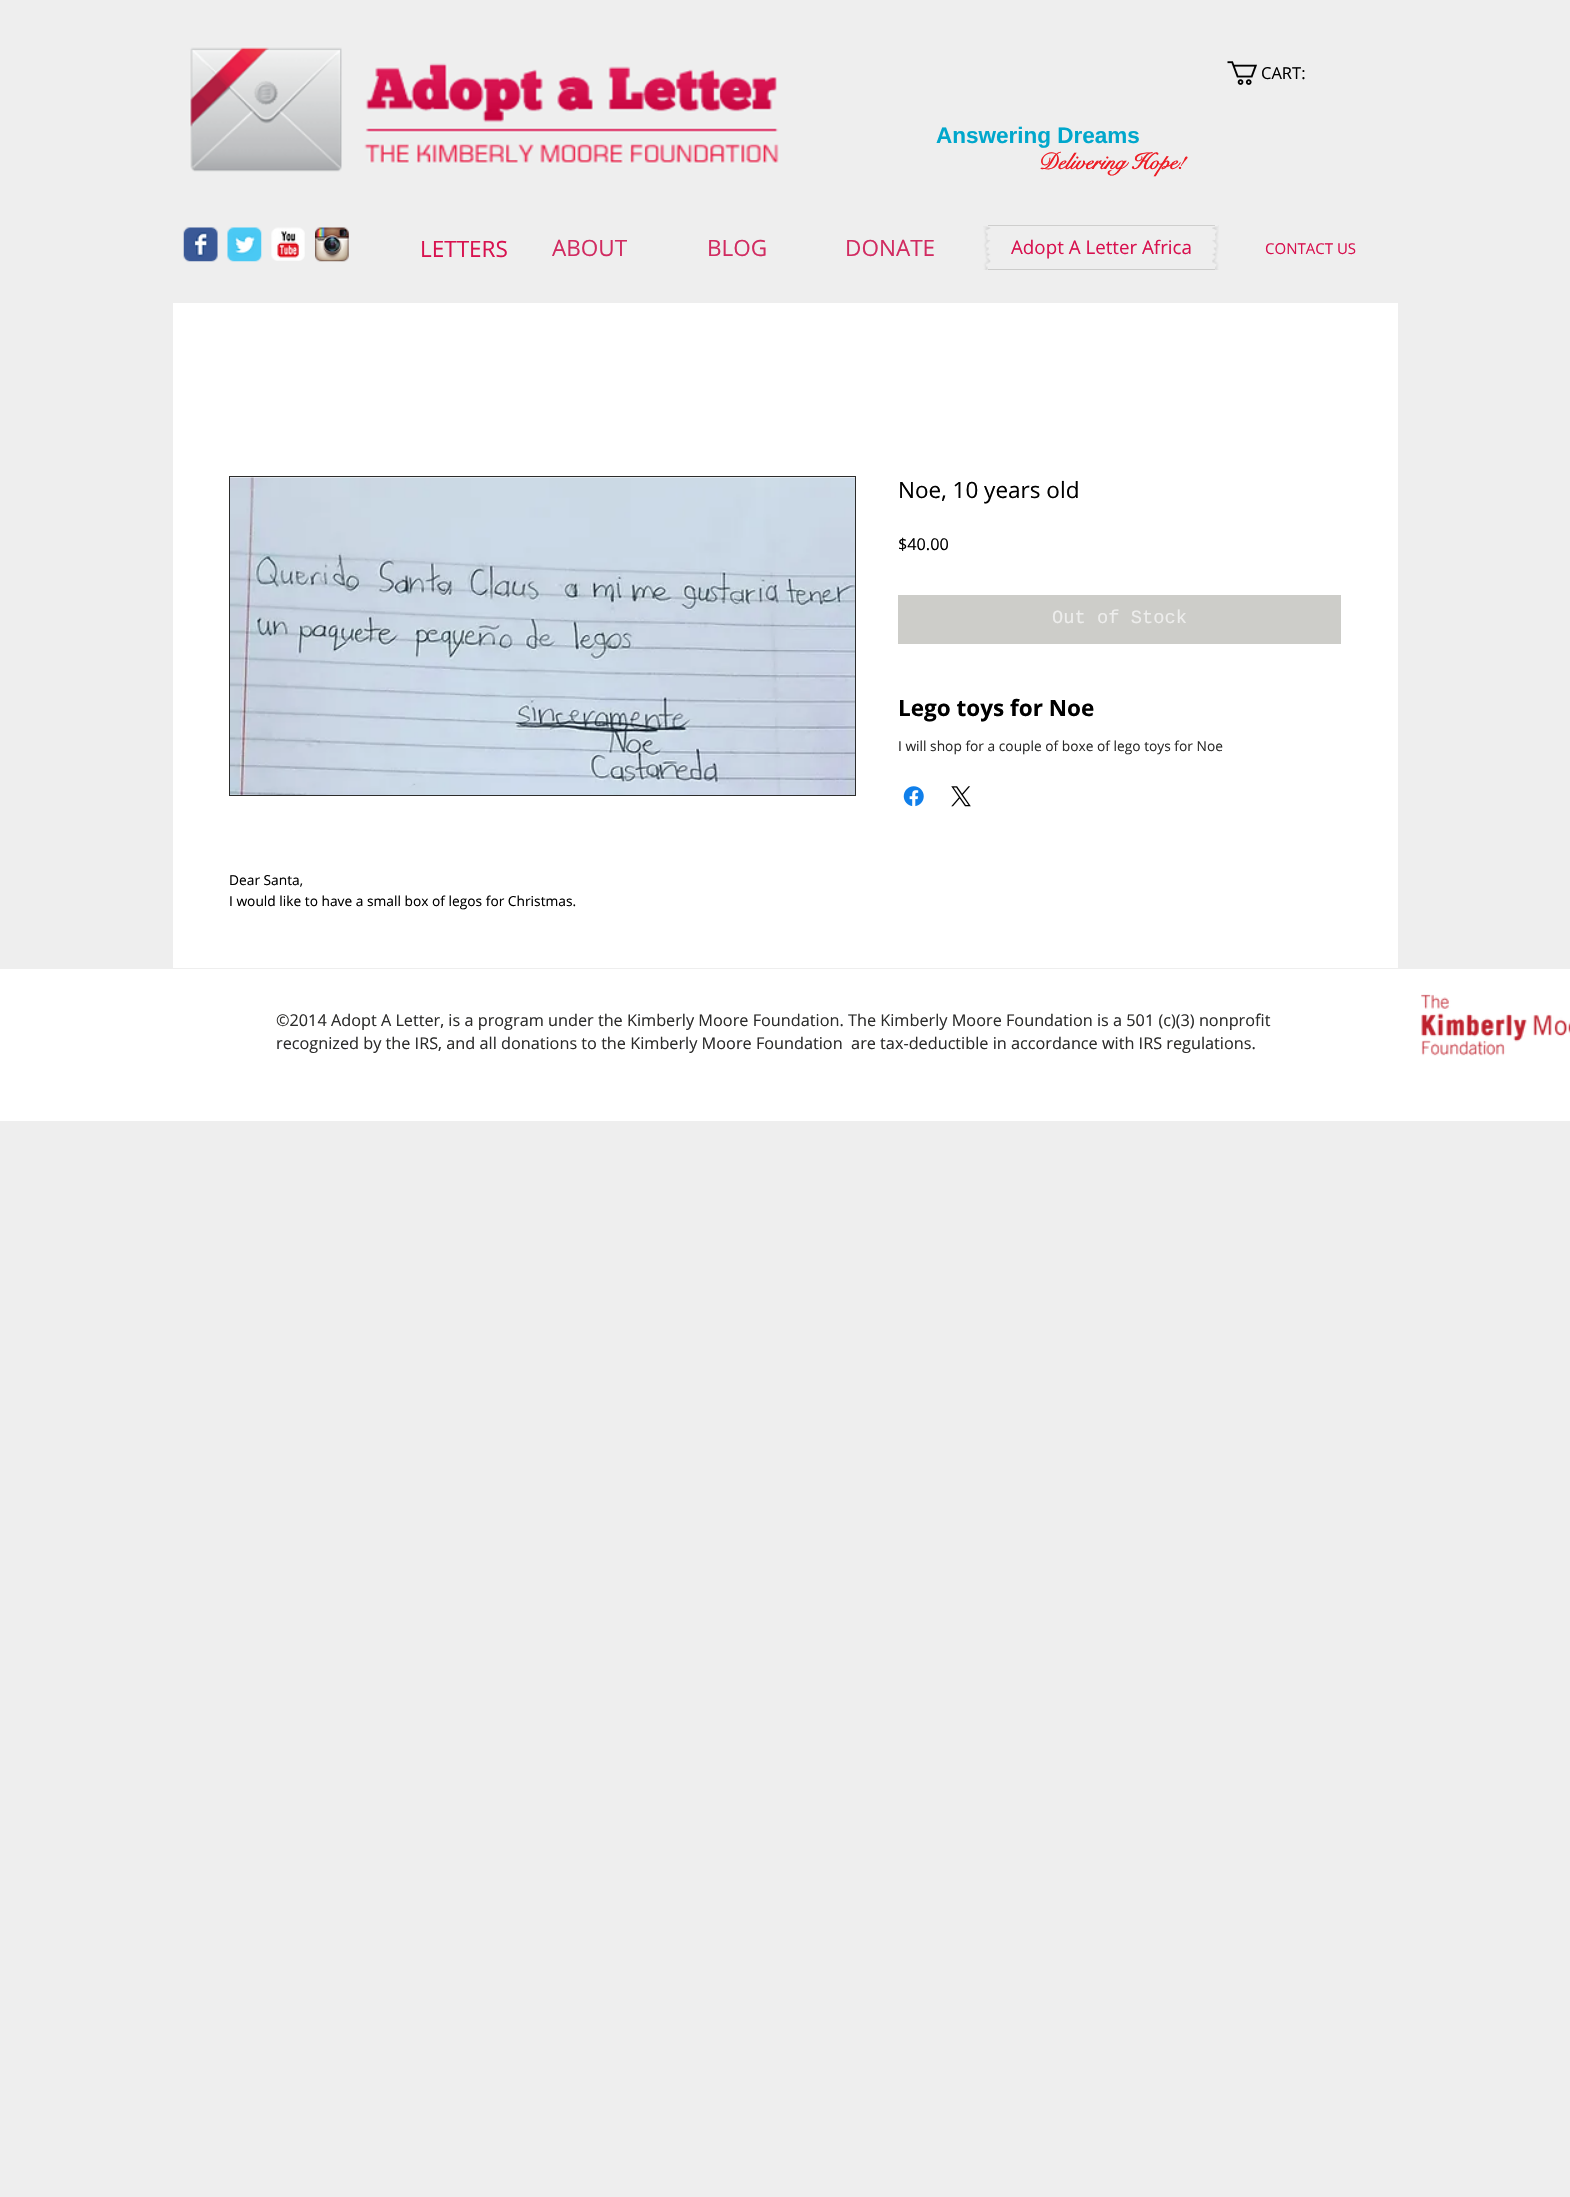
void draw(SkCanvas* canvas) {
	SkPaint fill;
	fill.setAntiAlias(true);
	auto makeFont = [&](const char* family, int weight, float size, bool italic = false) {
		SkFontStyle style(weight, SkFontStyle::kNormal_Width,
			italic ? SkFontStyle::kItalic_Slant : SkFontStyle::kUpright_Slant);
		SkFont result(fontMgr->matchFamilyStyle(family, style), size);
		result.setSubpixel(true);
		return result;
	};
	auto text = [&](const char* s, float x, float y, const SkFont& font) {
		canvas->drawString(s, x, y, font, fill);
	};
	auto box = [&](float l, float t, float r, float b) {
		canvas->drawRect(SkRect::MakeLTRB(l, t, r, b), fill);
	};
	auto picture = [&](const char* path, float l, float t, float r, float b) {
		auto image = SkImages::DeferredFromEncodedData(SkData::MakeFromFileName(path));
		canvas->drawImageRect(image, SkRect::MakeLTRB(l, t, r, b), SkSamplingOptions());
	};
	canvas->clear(0xFFEEEEEE);
	picture("image0.png", 189, 46, 342, 172);
	picture("image1.png", 364, 63, 780, 164);
	picture("image2.png", 1227, 61, 1257, 85);
	picture("image3.png", 183, 227, 218, 262);
	picture("image4.png", 227, 227, 262, 262);
	picture("image5.png", 271, 227, 305, 261);
	picture("image6.png", 315, 227, 349, 262);
	picture("image7.png", 983, 226, 991, 270);
	fill.setColor(0xFFCECECD);
	box(988, 225, 1215, 226);
	fill.setColor(0xFFCCCCCB);
	box(988, 269, 1215, 270);
	picture("image8.png", 1212, 225, 1219, 270);
	fill.setColor(0xFFFFFFFF);
	box(173, 303, 1398, 968);
	fill.setColor(0xFFCDCDC9);
	box(898, 595, 1341, 644);
	picture("image9.png", 903, 786, 924, 807);
	picture("image10.png", 951, 786, 971, 807);
	fill.setStyle(SkPaint::kStroke_Style);
	fill.setStrokeWidth(1);
	fill.setColor(0xFF2C2C2B);
	canvas->drawRect(SkRect::MakeLTRB(229.5f, 476.5f, 855.5f, 795.5f), fill);
	picture("image11.png", 230, 477, 855, 795);
	fill.setStyle(SkPaint::kFill_Style);
	fill.setColor(0xFFFFFFFF);
	box(0, 969, 1570, 1121);
	picture("image12.png", 1421, 994, 1570, 1056);
	auto font1 = makeFont("Open Sans", 400, 16.5f);
	fill.setColor(0xFF000000);
	text("CART:", 1261, 79, font1);
	auto font2 = makeFont("Liberation Sans", 700, 22.5f);
	fill.setColor(0xFF00A7CC);
	text("Answering Dreams", 936, 143, font2);
	auto font3 = makeFont("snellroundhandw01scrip", 700, 22.5f);
	fill.setColor(0xFFED1C24);
	text("Delivering Hope!", 1038, 169, font3);
	auto font4 = makeFont("Open Sans", 400, 22.5f);
	fill.setColor(0xFFD8114F);
	text("LETTERS", 420, 257, font4);
	fill.setColor(0xFFD12B61);
	text("ABOUT", 552, 256, font4);
	text("BLOG", 707, 256, font4);
	text("DONATE", 845, 256, font4);
	auto font5 = makeFont("Open Sans", 400, 18.75f);
	fill.setColor(0xFFD8114F);
	text("Adopt A Letter Africa", 1011, 254, font5);
	auto font6 = makeFont("Open Sans", 400, 15);
	text("CONTACT US", 1265, 254, font6);
	fill.setColor(0xFF000000);
	text("Noe, 10 years old", 898, 498, font4);
	auto font7 = makeFont("Open Sans", 400, 16.25f);
	text("$40.00", 898, 550, font7);
	auto font8 = makeFont("Liberation Mono", 400, 18.75f);
	fill.setColor(0xFFEDEDEC);
	text("Out of Stock", 1052, 623, font8);
	auto font9 = makeFont("Open Sans", 700, 22.5f);
	fill.setColor(0xFF000000);
	text("Lego toys for Noe", 898, 716, font9);
	auto font10 = makeFont("Open Sans", 400, 13.75f);
	fill.setColor(0xFF2C2C2B);
	text("I will shop for a couple of boxe of lego toys for Noe", 898, 751, font10);
	fill.setColor(0xFF000000);
	text("Dear Santa,", 229, 885, font10);
	text("I would like to have a small box of legos for Christmas.", 229, 906, font10);
	fill.setColor(0xFF2C2C2B);
	text("©2014 Adopt A Letter, is a program under the Kimberly Moore Foundation. The Kimberly Moore Foundation is a 501 (c)(3) nonprofit", 276, 1026, font7);
	text("recognized by the IRS, and all donations to the Kimberly Moore Foundation  are tax-deductible in accordance with IRS regulations.", 276, 1049, font7);
}
